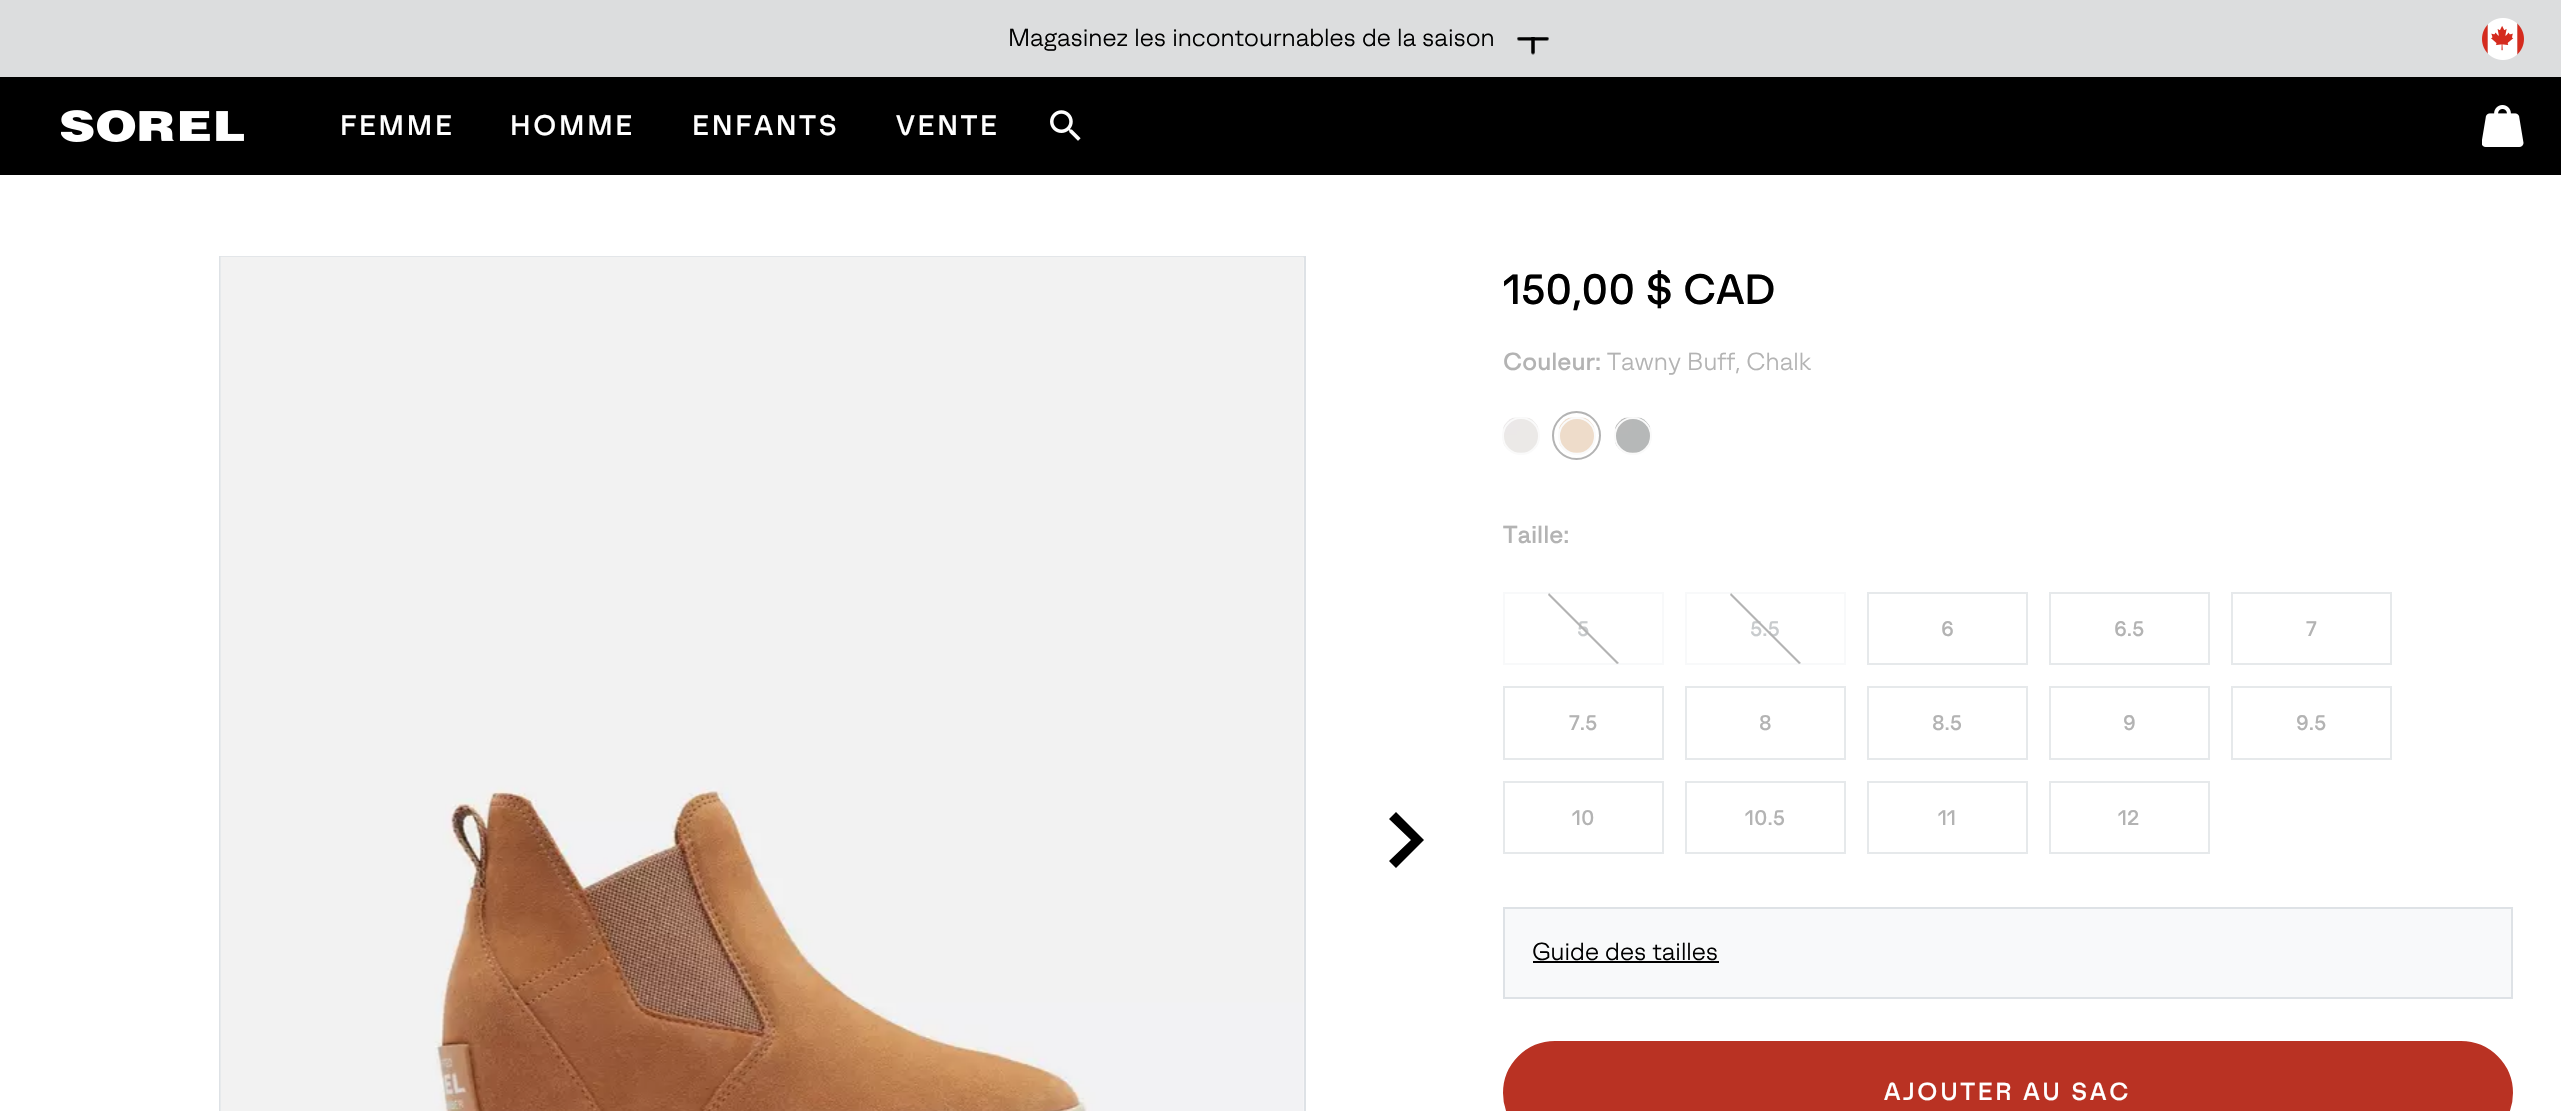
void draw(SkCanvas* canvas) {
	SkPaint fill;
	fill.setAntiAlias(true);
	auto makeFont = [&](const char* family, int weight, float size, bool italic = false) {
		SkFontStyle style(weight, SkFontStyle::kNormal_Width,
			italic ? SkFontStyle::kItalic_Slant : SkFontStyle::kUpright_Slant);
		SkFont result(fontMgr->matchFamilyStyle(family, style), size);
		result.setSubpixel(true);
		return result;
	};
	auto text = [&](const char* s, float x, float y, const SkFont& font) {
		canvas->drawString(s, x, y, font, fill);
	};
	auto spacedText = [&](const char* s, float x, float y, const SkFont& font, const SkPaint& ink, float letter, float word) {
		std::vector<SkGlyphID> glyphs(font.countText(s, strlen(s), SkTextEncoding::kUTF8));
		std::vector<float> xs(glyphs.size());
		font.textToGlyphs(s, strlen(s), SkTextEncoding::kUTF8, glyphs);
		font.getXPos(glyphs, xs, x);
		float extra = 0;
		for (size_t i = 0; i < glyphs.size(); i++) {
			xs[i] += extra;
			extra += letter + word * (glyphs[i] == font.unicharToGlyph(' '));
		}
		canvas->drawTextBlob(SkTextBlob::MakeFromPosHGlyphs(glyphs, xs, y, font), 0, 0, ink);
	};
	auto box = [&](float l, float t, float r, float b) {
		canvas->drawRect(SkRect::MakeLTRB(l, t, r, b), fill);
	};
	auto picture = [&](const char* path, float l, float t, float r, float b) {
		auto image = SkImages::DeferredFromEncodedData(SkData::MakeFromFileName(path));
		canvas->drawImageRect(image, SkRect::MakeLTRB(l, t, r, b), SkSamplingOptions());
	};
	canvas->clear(0xFFFFFFFF);
	fill.setColor(0xFFDCDDDE);
	box(0, 0, 2561, 77);
	picture("image0.png", 1517, 37, 1549, 55);
	picture("image1.png", 2482, 18, 2524, 60);
	fill.setColor(0xFF000000);
	box(0, 77, 2561, 175);
	picture("image2.png", 61, 110, 244, 142);
	picture("image3.png", 1050, 110, 1081, 141);
	picture("image4.png", 2482, 105, 2524, 147);
	fill.setStyle(SkPaint::kStroke_Style);
	fill.setStrokeWidth(2);
	fill.setColor(0xFFDEE2E6);
	canvas->drawRect(SkRect::MakeLTRB(220, 257, 1305, 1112), fill);
	picture("image5.png", 220, 256, 1304, 1111);
	fill.setStyle(SkPaint::kFill_Style);
	fill.setColor(0xFF000000);
	canvas->drawPath(SkPathBuilder().moveTo(1396, 812).lineTo(1389, 819).lineTo(1411, 840).lineTo(1389, 861).lineTo(1396, 868).lineTo(1424, 840).close().detach(), fill);
	picture("image6.png", 1503, 417, 1539, 453);
	fill.setStyle(SkPaint::kStroke_Style);
	fill.setColor(0xFFFAFAFA);
	canvas->drawCircle(1521, 436, 18, fill);
	fill.setColor(0xFFB3B3B3);
	canvas->drawCircle(1576.5f, 435.5f, 23.5f, fill);
	picture("image7.png", 1559, 417, 1595, 453);
	fill.setColor(0xFFFAFAFA);
	canvas->drawCircle(1577, 436, 18, fill);
	picture("image8.png", 1615, 417, 1651, 453);
	canvas->drawCircle(1633, 436, 18, fill);
	fill.setColor(0xFFF8F9FA);
	canvas->drawRect(SkRect::MakeLTRB(1504, 593, 1663, 664), fill);
	canvas->drawRect(SkRect::MakeLTRB(1686, 593, 1845, 664), fill);
	fill.setColor(0xFFE6E9EB);
	canvas->drawRect(SkRect::MakeLTRB(1868, 593, 2027, 664), fill);
	canvas->drawRect(SkRect::MakeLTRB(2050, 593, 2209, 664), fill);
	canvas->drawRect(SkRect::MakeLTRB(2232, 593, 2391, 664), fill);
	canvas->drawRect(SkRect::MakeLTRB(1504, 687, 1663, 759), fill);
	canvas->drawRect(SkRect::MakeLTRB(1686, 687, 1845, 759), fill);
	canvas->drawRect(SkRect::MakeLTRB(1868, 687, 2027, 759), fill);
	canvas->drawRect(SkRect::MakeLTRB(2050, 687, 2209, 759), fill);
	canvas->drawRect(SkRect::MakeLTRB(2232, 687, 2391, 759), fill);
	canvas->drawRect(SkRect::MakeLTRB(1504, 782, 1663, 853), fill);
	canvas->drawRect(SkRect::MakeLTRB(1686, 782, 1845, 853), fill);
	canvas->drawRect(SkRect::MakeLTRB(1868, 782, 2027, 853), fill);
	canvas->drawRect(SkRect::MakeLTRB(2050, 782, 2209, 853), fill);
	fill.setStyle(SkPaint::kFill_Style);
	fill.setColor(0xFFF8F9FA);
	canvas->drawRect(SkRect::MakeLTRB(1504, 908, 2512, 998), fill);
	fill.setStyle(SkPaint::kStroke_Style);
	fill.setColor(0xFFDEE2E6);
	canvas->drawRect(SkRect::MakeLTRB(1504, 908, 2512, 998), fill);
	fill.setStyle(SkPaint::kFill_Style);
	fill.setColor(0xFF000000);
	box(1533, 961, 1719, 963);
	fill.setColor(0xFFB93223);
	canvas->drawRoundRect(SkRect::MakeLTRB(1504, 1042, 2512, 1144), 51, 51, fill);
	fill.setStyle(SkPaint::kStroke_Style);
	canvas->drawRoundRect(SkRect::MakeLTRB(1504, 1042, 2512, 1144), 51, 51, fill);
	auto font1 = makeFont("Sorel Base", 400, 24.5f);
	fill.setStyle(SkPaint::kFill_Style);
	fill.setColor(0xFF000000);
	text("Magasinez les incontournables de la saison", 1008, 46, font1);
	auto font2 = makeFont("Sorel Base", 500, 28);
	fill.setColor(0xFFFFFFFF);
	spacedText("FEMME", 340, 135, font2, fill, 2.75f, 0);
	spacedText("HOMME", 510, 135, font2, fill, 2.75f, 0);
	spacedText("ENFANTS", 692, 135, font2, fill, 2.75f, 0);
	spacedText("VENTE", 896, 135, font2, fill, 2.75f, 0);
	auto font3 = makeFont("Sorel Base", 500, 42);
	fill.setColor(0xFF000000);
	text("150,00 $ CAD", 1503, 304, font3);
	auto font4 = makeFont("Sorel Base", 500, 24.5f);
	fill.setColor(0xFFB3B3B3);
	text("Couleur:", 1503, 370, font4);
	text("Tawny Buff, Chalk", 1607, 370, font1);
	text("Taille:", 1503, 543, font4);
	auto font5 = makeFont("Sorel Base", 500, 21);
	fill.setColor(0xFFC8CBCD);
	text("5", 1577, 636, font5);
	fill.setColor(0xFFB3B3B3);
	canvas->drawPath(SkPathBuilder().moveTo(1549, 593).lineTo(1619, 663).lineTo(1617, 664).lineTo(1548, 595).close().detach(), fill);
	fill.setColor(0xFFC8CBCD);
	text("5.5", 1750, 636, font5);
	fill.setColor(0xFFB3B3B3);
	canvas->drawPath(SkPathBuilder().moveTo(1731, 593).lineTo(1801, 663).lineTo(1799, 664).lineTo(1730, 595).close().detach(), fill);
	text("6", 1941, 636, font5);
	text("6.5", 2114, 636, font5);
	text("7", 2306, 636, font5);
	text("7.5", 1569, 730, font5);
	text("8", 1759, 730, font5);
	text("8.5", 1932, 730, font5);
	text("9", 2123, 730, font5);
	text("9.5", 2296, 730, font5);
	text("10", 1572, 825, font5);
	text("10.5", 1745, 825, font5);
	text("11", 1938, 825, font5);
	text("12", 2118, 825, font5);
	fill.setColor(0xFF000000);
	text("Guide des tailles", 1532, 960, font1);
	fill.setColor(0xFFFFFFFF);
	spacedText("AJOUTER AU SAC", 1884, 1100, font4, fill, 2.75f, 0);
}
